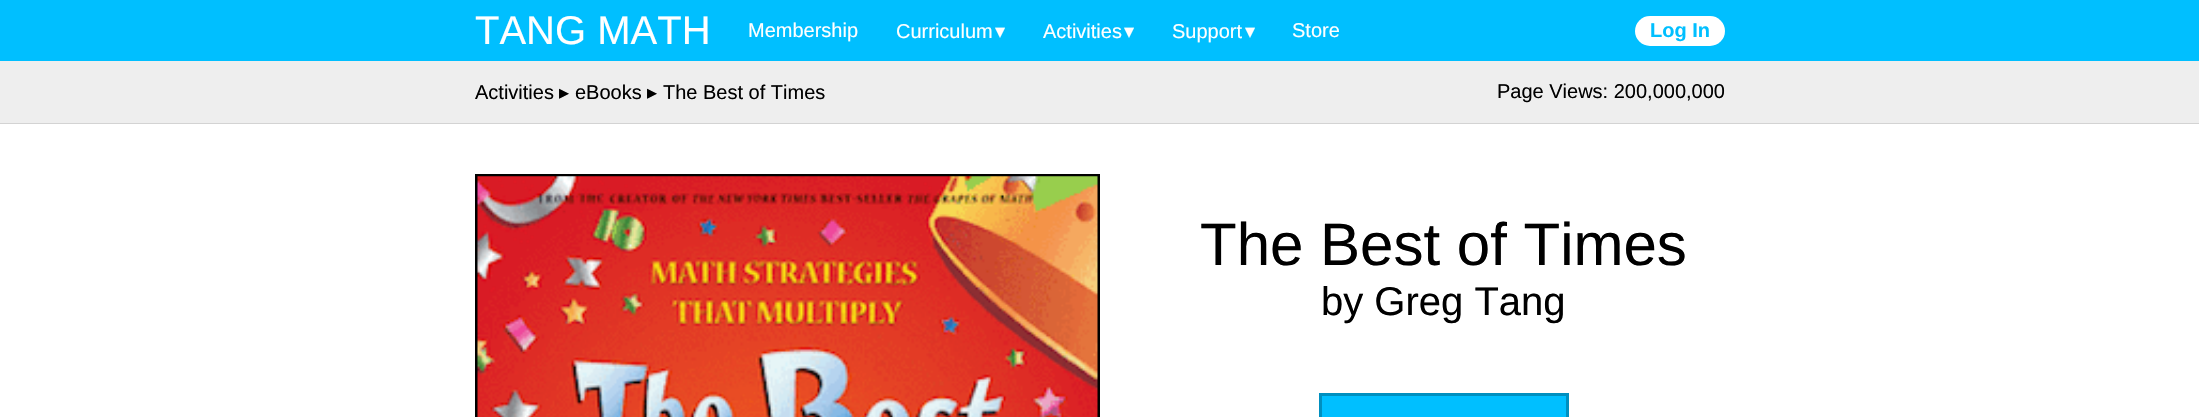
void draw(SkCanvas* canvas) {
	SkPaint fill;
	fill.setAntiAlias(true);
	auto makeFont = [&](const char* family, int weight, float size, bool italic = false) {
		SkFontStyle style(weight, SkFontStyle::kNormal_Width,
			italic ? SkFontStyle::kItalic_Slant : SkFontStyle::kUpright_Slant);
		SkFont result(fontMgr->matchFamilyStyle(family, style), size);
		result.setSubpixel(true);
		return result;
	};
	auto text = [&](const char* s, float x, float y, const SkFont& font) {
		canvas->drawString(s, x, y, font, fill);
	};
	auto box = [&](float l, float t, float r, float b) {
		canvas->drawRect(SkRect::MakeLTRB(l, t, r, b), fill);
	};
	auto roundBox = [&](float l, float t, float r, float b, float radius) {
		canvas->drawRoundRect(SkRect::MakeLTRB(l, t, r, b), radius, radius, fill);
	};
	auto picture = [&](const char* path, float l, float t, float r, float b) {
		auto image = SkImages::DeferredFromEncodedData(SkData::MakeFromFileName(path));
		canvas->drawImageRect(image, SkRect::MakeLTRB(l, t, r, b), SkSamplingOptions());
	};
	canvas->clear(0xFFFFFFFF);
	fill.setColor(0xFF00BFFF);
	box(0, 0, 2199, 61);
	fill.setColor(0xFFFFFFFF);
	roundBox(1635, 16, 1725, 46, 15);
	fill.setColor(0xFFEEEEEE);
	box(0, 61, 2199, 123);
	fill.setColor(0xFFD3D3D3);
	box(0, 123, 2199, 124);
	fill.setStyle(SkPaint::kStroke_Style);
	fill.setStrokeWidth(3);
	fill.setColor(0xFF000000);
	canvas->drawRect(SkRect::MakeLTRB(476.5f, 175.5f, 1098.5f, 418.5f), fill);
	picture("image0.png", 477, 176, 1098, 417);
	fill.setStyle(SkPaint::kFill_Style);
	fill.setColor(0xFF00BFFF);
	canvas->drawRect(SkRect::MakeLTRB(1320.5f, 394.5f, 1567.5f, 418.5f), fill);
	fill.setStyle(SkPaint::kStroke_Style);
	fill.setColor(0xFF008FBF);
	canvas->drawRect(SkRect::MakeLTRB(1320.5f, 394.5f, 1567.5f, 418.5f), fill);
	auto font1 = makeFont("Liberation Sans", 400, 40);
	fill.setStyle(SkPaint::kFill_Style);
	fill.setColor(0xFFFFFFFF);
	text("TANG MATH", 475, 44, font1);
	auto font2 = makeFont("Liberation Sans", 400, 20);
	text("Membership", 748, 37, font2);
	text("Curriculum", 896, 38, font2);
	auto font3 = makeFont("DejaVu Sans", 400, 20);
	text("▾", 995, 38, font3);
	text("Activities", 1043, 38, font2);
	text("▾", 1124, 38, font3);
	text("Support", 1172, 38, font2);
	text("▾", 1245, 38, font3);
	text("Store", 1292, 37, font2);
	auto font4 = makeFont("Liberation Sans", 700, 20);
	fill.setColor(0xFF00BFFF);
	text("Log In", 1650, 37, font4);
	fill.setColor(0xFF000000);
	text("Activities", 475, 99, font2);
	text("▸", 559, 99, font3);
	text("eBooks", 575, 99, font2);
	text("▸", 647, 99, font3);
	text("The Best of Times", 663, 99, font2);
	text("Page Views: 200,000,000", 1497, 98, font2);
	auto font5 = makeFont("Liberation Sans", 400, 60);
	text("The Best of Times", 1200, 265, font5);
	text("by Greg Tang", 1321, 315, font1);
}
